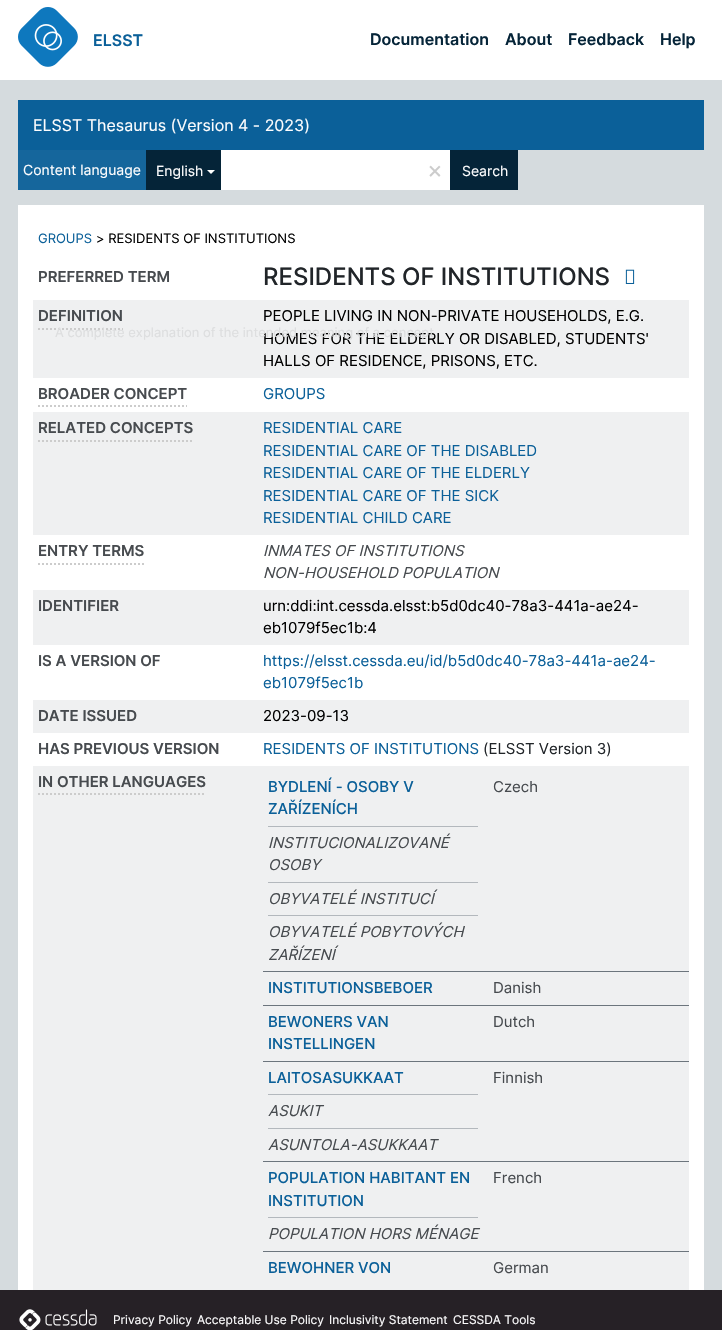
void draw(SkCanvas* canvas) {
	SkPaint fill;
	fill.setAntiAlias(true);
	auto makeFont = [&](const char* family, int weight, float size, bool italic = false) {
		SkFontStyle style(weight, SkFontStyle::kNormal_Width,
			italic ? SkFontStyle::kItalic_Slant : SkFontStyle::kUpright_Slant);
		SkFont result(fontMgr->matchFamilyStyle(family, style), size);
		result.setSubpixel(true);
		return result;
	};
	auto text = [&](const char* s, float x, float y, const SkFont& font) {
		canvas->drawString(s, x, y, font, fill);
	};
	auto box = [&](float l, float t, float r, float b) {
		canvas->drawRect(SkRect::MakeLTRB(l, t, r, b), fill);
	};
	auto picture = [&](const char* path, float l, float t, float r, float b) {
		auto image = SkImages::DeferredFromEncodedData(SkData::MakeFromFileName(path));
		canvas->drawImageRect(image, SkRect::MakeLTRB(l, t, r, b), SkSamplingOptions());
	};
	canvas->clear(0xFFD5DBDE);
	fill.setColor(0xFFFFFFFF);
	box(0, 0, 722, 80);
	picture("image0.png", 18, 7, 78, 67);
	fill.setColor(0xFF0B6099);
	box(18, 100, 704, 150);
	fill.setColor(0xFF15669C);
	box(18, 150, 146, 190);
	fill.setColor(0xFF052438);
	box(146, 150, 221, 190);
	fill.setColor(0xFFFFFFFF);
	canvas->drawPath(SkPathBuilder().moveTo(207, 170).lineTo(215, 170).lineTo(211, 174).close().detach(), fill);
	box(221, 150, 450, 190);
	fill.setColor(0xFF052438);
	box(450, 150, 518, 190);
	fill.setColor(0xFFFFFFFF);
	box(18, 205, 704, 1290);
	picture("image1.png", 625, 269, 635, 284);
	fill.setColor(0xFFEFF0F1);
	box(33, 300, 689, 378);
	fill.setStyle(SkPaint::kStroke_Style);
	fill.setStrokeWidth(2);
	fill.setColor(0xFFCCCCCC);
	fill.setPathEffect(SkDashPathEffect::Make({{2, 2}}, 0));
	canvas->drawPath(SkPathBuilder().moveTo(38, 329).lineTo(123, 329).detach(), fill);
	fill.setPathEffect(nullptr);
	fill.setPathEffect(SkDashPathEffect::Make({{2, 2}}, 0));
	canvas->drawPath(SkPathBuilder().moveTo(38, 406).lineTo(187, 406).detach(), fill);
	fill.setPathEffect(nullptr);
	fill.setStyle(SkPaint::kFill_Style);
	fill.setColor(0xFFEFF0F1);
	box(33, 412, 689, 535);
	fill.setStyle(SkPaint::kStroke_Style);
	fill.setColor(0xFFCCCCCC);
	fill.setPathEffect(SkDashPathEffect::Make({{2, 2}}, 0));
	canvas->drawPath(SkPathBuilder().moveTo(38, 441).lineTo(193, 441).detach(), fill);
	fill.setPathEffect(nullptr);
	fill.setPathEffect(SkDashPathEffect::Make({{2, 2}}, 0));
	canvas->drawPath(SkPathBuilder().moveTo(38, 564).lineTo(144, 564).detach(), fill);
	fill.setPathEffect(nullptr);
	fill.setStyle(SkPaint::kFill_Style);
	fill.setColor(0xFFEFF0F1);
	box(33, 590, 689, 645);
	box(33, 700, 689, 733);
	box(33, 766, 689, 1290);
	fill.setStyle(SkPaint::kStroke_Style);
	fill.setColor(0xFFCCCCCC);
	fill.setPathEffect(SkDashPathEffect::Make({{2, 2}}, 0));
	canvas->drawPath(SkPathBuilder().moveTo(38, 794).lineTo(206, 794).detach(), fill);
	fill.setPathEffect(nullptr);
	fill.setStyle(SkPaint::kFill_Style);
	fill.setColor(0xFFB3B8BD);
	box(268, 826, 478, 827);
	box(268, 882, 478, 883);
	box(268, 915, 478, 916);
	fill.setColor(0xFF6C757D);
	box(263, 971, 689, 972);
	box(263, 1005, 689, 1006);
	box(263, 1061, 689, 1062);
	fill.setColor(0xFFB3B8BD);
	box(268, 1094, 478, 1095);
	box(268, 1128, 478, 1129);
	fill.setColor(0xFF6C757D);
	box(263, 1161, 689, 1162);
	fill.setColor(0xFFB3B8BD);
	box(268, 1217, 478, 1218);
	fill.setColor(0xFF6C757D);
	box(263, 1251, 689, 1252);
	fill.setColor(0xFF262126);
	box(0, 1290, 722, 1330);
	picture("image2.png", 19, 1309, 97, 1330);
	auto font1 = makeFont("Inter", 600, 16);
	fill.setColor(0xFF0B6099);
	text("ELSST", 93, 46, font1);
	fill.setColor(0xFF052438);
	text("Documentation", 370, 45, font1);
	text("About", 505, 45, font1);
	text("Feedback", 568, 45, font1);
	text("Help", 660, 45, font1);
	auto font2 = makeFont("Inter", 400, 16);
	fill.setColor(0xFFFDFDFE);
	text("ELSST Thesaurus (Version 4 - 2023)", 33, 131, font2);
	auto font3 = makeFont("Inter", 400, 14);
	text("Content language", 23, 175, font3);
	text("English", 156, 176, font3);
	auto font4 = makeFont("Inter", 400, 24);
	fill.setColor(0xFFCCCCCC);
	text("×", 427, 178, font4);
	fill.setColor(0xFFFDFDFE);
	text("Search", 462, 176, font3);
	auto font5 = makeFont("Inter", 400, 13);
	fill.setColor(0xFF0B6099);
	text("GROUPS", 38, 243, font5);
	fill.setColor(0xFF000000);
	text("> RESIDENTS OF INSTITUTIONS", 96, 243, font5);
	auto font6 = makeFont("Inter", 600, 15);
	fill.setColor(0xFF474B4F);
	text("PREFERRED TERM", 38, 282, font6);
	auto font7 = makeFont("Inter", 500, 24);
	fill.setColor(0xFF212529);
	text("RESIDENTS OF INSTITUTIONS", 263, 285, font7);
	fill.setColor(0xFF474B4F);
	text("DEFINITION", 38, 321, font6);
	auto font8 = makeFont("Inter", 400, 15);
	fill.setColor(0xFF000000);
	text("PEOPLE LIVING IN NON-PRIVATE HOUSEHOLDS, E.G.", 263, 321, font8);
	text("HOMES FOR THE ELDERLY OR DISABLED, STUDENTS'", 263, 344, font8);
	fill.setColor(0xFFDDDEDF);
	text("A complete explanation of the intended meaning of a concept", 55, 337, font5);
	fill.setColor(0xFF000000);
	text("HALLS OF RESIDENCE, PRISONS, ETC.", 263, 366, font8);
	fill.setColor(0xFF474B4F);
	text("BROADER CONCEPT", 38, 399, font6);
	fill.setColor(0xFF0B6099);
	text("GROUPS", 263, 399, font8);
	fill.setColor(0xFF474B4F);
	text("RELATED CONCEPTS", 38, 433, font6);
	fill.setColor(0xFF0B6099);
	text("RESIDENTIAL CARE", 263, 433, font8);
	text("RESIDENTIAL CARE OF THE DISABLED", 263, 456, font8);
	text("RESIDENTIAL CARE OF THE ELDERLY", 263, 478, font8);
	text("RESIDENTIAL CARE OF THE SICK", 263, 501, font8);
	text("RESIDENTIAL CHILD CARE", 263, 523, font8);
	fill.setColor(0xFF474B4F);
	text("ENTRY TERMS", 38, 556, font6);
	auto font9 = makeFont("Inter", 400, 15, true);
	text("INMATES OF INSTITUTIONS", 263, 556, font9);
	text("NON-HOUSEHOLD POPULATION", 263, 578, font9);
	text("IDENTIFIER", 38, 611, font6);
	fill.setColor(0xFF000000);
	text("urn:ddi:int.cessda.elsst:b5d0dc40-78a3-441a-ae24-", 263, 611, font8);
	text("eb1079f5ec1b:4", 263, 633, font8);
	fill.setColor(0xFF474B4F);
	text("IS A VERSION OF", 38, 666, font6);
	fill.setColor(0xFF0B6099);
	text("https://elsst.cessda.eu/id/b5d0dc40-78a3-441a-ae24-", 263, 666, font8);
	text("eb1079f5ec1b", 263, 688, font8);
	fill.setColor(0xFF474B4F);
	text("DATE ISSUED", 38, 721, font6);
	fill.setColor(0xFF000000);
	text("2023-09-13", 263, 721, font8);
	fill.setColor(0xFF474B4F);
	text("HAS PREVIOUS VERSION", 38, 754, font6);
	fill.setColor(0xFF0B6099);
	text("RESIDENTS OF INSTITUTIONS", 263, 754, font8);
	fill.setColor(0xFF212529);
	text("(ELSST Version 3)", 483, 754, font8);
	fill.setColor(0xFF474B4F);
	text("IN OTHER LANGUAGES", 38, 787, font6);
	auto font10 = makeFont("Inter", 500, 15);
	fill.setColor(0xFF0B6099);
	text("BYDLENÍ - OSOBY V", 268, 792, font10);
	text("ZAŘÍZENÍCH", 268, 814, font10);
	fill.setColor(0xFF474B4F);
	text("Czech", 493, 792, font8);
	text("INSTITUCIONALIZOVANÉ", 268, 848, font9);
	text("OSOBY", 268, 870, font9);
	text("OBYVATELÉ INSTITUCÍ", 268, 904, font9);
	text("OBYVATELÉ POBYTOVÝCH", 268, 937, font9);
	text("ZAŘÍZENÍ", 268, 960, font9);
	fill.setColor(0xFF0B6099);
	text("INSTITUTIONSBEBOER", 268, 993, font10);
	fill.setColor(0xFF474B4F);
	text("Danish", 493, 993, font8);
	fill.setColor(0xFF0B6099);
	text("BEWONERS VAN", 268, 1027, font10);
	text("INSTELLINGEN", 268, 1049, font10);
	fill.setColor(0xFF474B4F);
	text("Dutch", 493, 1027, font8);
	fill.setColor(0xFF0B6099);
	text("LAITOSASUKKAAT", 268, 1083, font10);
	fill.setColor(0xFF474B4F);
	text("Finnish", 493, 1083, font8);
	text("ASUKIT", 268, 1116, font9);
	text("ASUNTOLA-ASUKKAAT", 268, 1150, font9);
	fill.setColor(0xFF0B6099);
	text("POPULATION HABITANT EN", 268, 1183, font10);
	text("INSTITUTION", 268, 1206, font10);
	fill.setColor(0xFF474B4F);
	text("French", 493, 1183, font8);
	text("POPULATION HORS MÉNAGE", 268, 1239, font9);
	fill.setColor(0xFF0B6099);
	text("BEWOHNER VON", 268, 1273, font10);
	fill.setColor(0xFF474B4F);
	text("German", 493, 1273, font8);
	auto font11 = makeFont("Inter", 400, 12);
	fill.setColor(0xFFFDFDFE);
	text("Privacy Policy", 113, 1324, font11);
	text("Acceptable Use Policy", 197, 1324, font11);
	text("Inclusivity Statement", 329, 1324, font11);
	text("CESSDA Tools", 453, 1324, font11);
}
